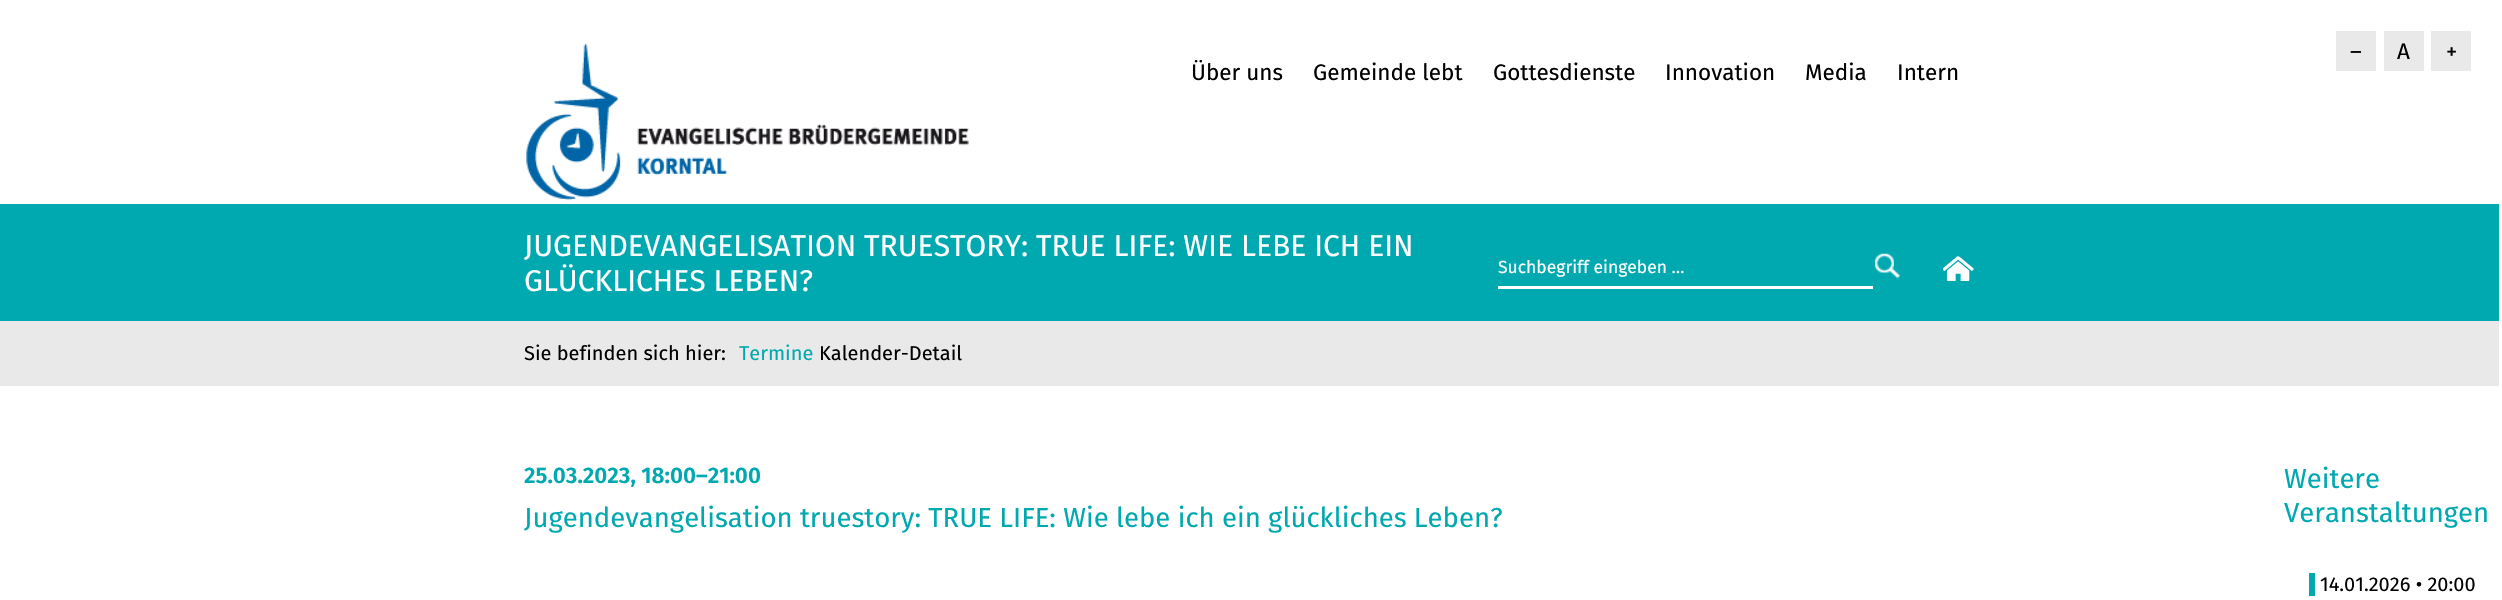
void draw(SkCanvas* canvas) {
	SkPaint fill;
	fill.setAntiAlias(true);
	auto makeFont = [&](const char* family, int weight, float size, bool italic = false) {
		SkFontStyle style(weight, SkFontStyle::kNormal_Width,
			italic ? SkFontStyle::kItalic_Slant : SkFontStyle::kUpright_Slant);
		SkFont result(fontMgr->matchFamilyStyle(family, style), size);
		result.setSubpixel(true);
		return result;
	};
	auto text = [&](const char* s, float x, float y, const SkFont& font) {
		canvas->drawString(s, x, y, font, fill);
	};
	auto box = [&](float l, float t, float r, float b) {
		canvas->drawRect(SkRect::MakeLTRB(l, t, r, b), fill);
	};
	auto picture = [&](const char* path, float l, float t, float r, float b) {
		auto image = SkImages::DeferredFromEncodedData(SkData::MakeFromFileName(path));
		canvas->drawImageRect(image, SkRect::MakeLTRB(l, t, r, b), SkSamplingOptions());
	};
	canvas->clear(0xFFFFFFFF);
	picture("image0.png", 526, 43, 969, 201);
	fill.setColor(0xFFE9E9E9);
	box(2336, 31, 2376, 71);
	box(2384, 31, 2424, 71);
	box(2431, 31, 2471, 71);
	fill.setColor(0xFF00A8B0);
	box(0, 204, 2499, 321);
	fill.setColor(0xFFFFFFFF);
	box(1498, 286, 1873, 289);
	picture("image1.png", 1874, 253, 1900, 279);
	picture("image2.png", 1943, 256, 1974, 281);
	fill.setColor(0xFFE9E9E9);
	box(0, 321, 2499, 386);
	fill.setColor(0xFF00A8B0);
	box(2309, 573, 2315, 596);
	auto font1 = makeFont("Fira Sans", 400, 22.5f);
	fill.setColor(0xFF000000);
	text("–", 2350, 59, font1);
	text("A", 2397, 59, font1);
	text("+", 2446, 59, font1);
	text("Über uns", 1191, 80, font1);
	text("Gemeinde lebt", 1313, 80, font1);
	text("Gottesdienste", 1493, 80, font1);
	text("Innovation", 1665, 80, font1);
	text("Media", 1805, 80, font1);
	text("Intern", 1897, 80, font1);
	auto font2 = makeFont("Fira Sans", 400, 30);
	fill.setColor(0xFFFFFFFF);
	text("JUGENDEVANGELISATION TRUESTORY: TRUE LIFE: WIE LEBE ICH EIN", 524, 256, font2);
	text("GLÜCKLICHES LEBEN?", 524, 291, font2);
	auto font3 = makeFont("Fira Sans", 400, 17.5f);
	text("Suchbegriff eingeben …", 1498, 273, font3);
	auto font4 = makeFont("Fira Sans", 400, 20);
	fill.setColor(0xFF000000);
	text("Sie befinden sich hier:", 524, 360, font4);
	fill.setColor(0xFF00A8B0);
	text("Termine", 739, 360, font4);
	fill.setColor(0xFF000000);
	text("Kalender-Detail", 819, 360, font4);
	auto font5 = makeFont("Fira Sans", 600, 22.5f);
	fill.setColor(0xFF00A8B0);
	text("25.03.2023, 18:00–21:00", 524, 483, font5);
	auto font6 = makeFont("Fira Sans", 400, 27.5f);
	text("Jugendevangelisation truestory: TRUE LIFE: Wie lebe ich ein glückliches Leben?", 524, 527, font6);
	text("Weitere", 2284, 488, font6);
	text("Veranstaltungen", 2284, 522, font6);
	fill.setColor(0xFF000000);
	text("14.01.2026 • 20:00", 2320, 591, font4);
}
